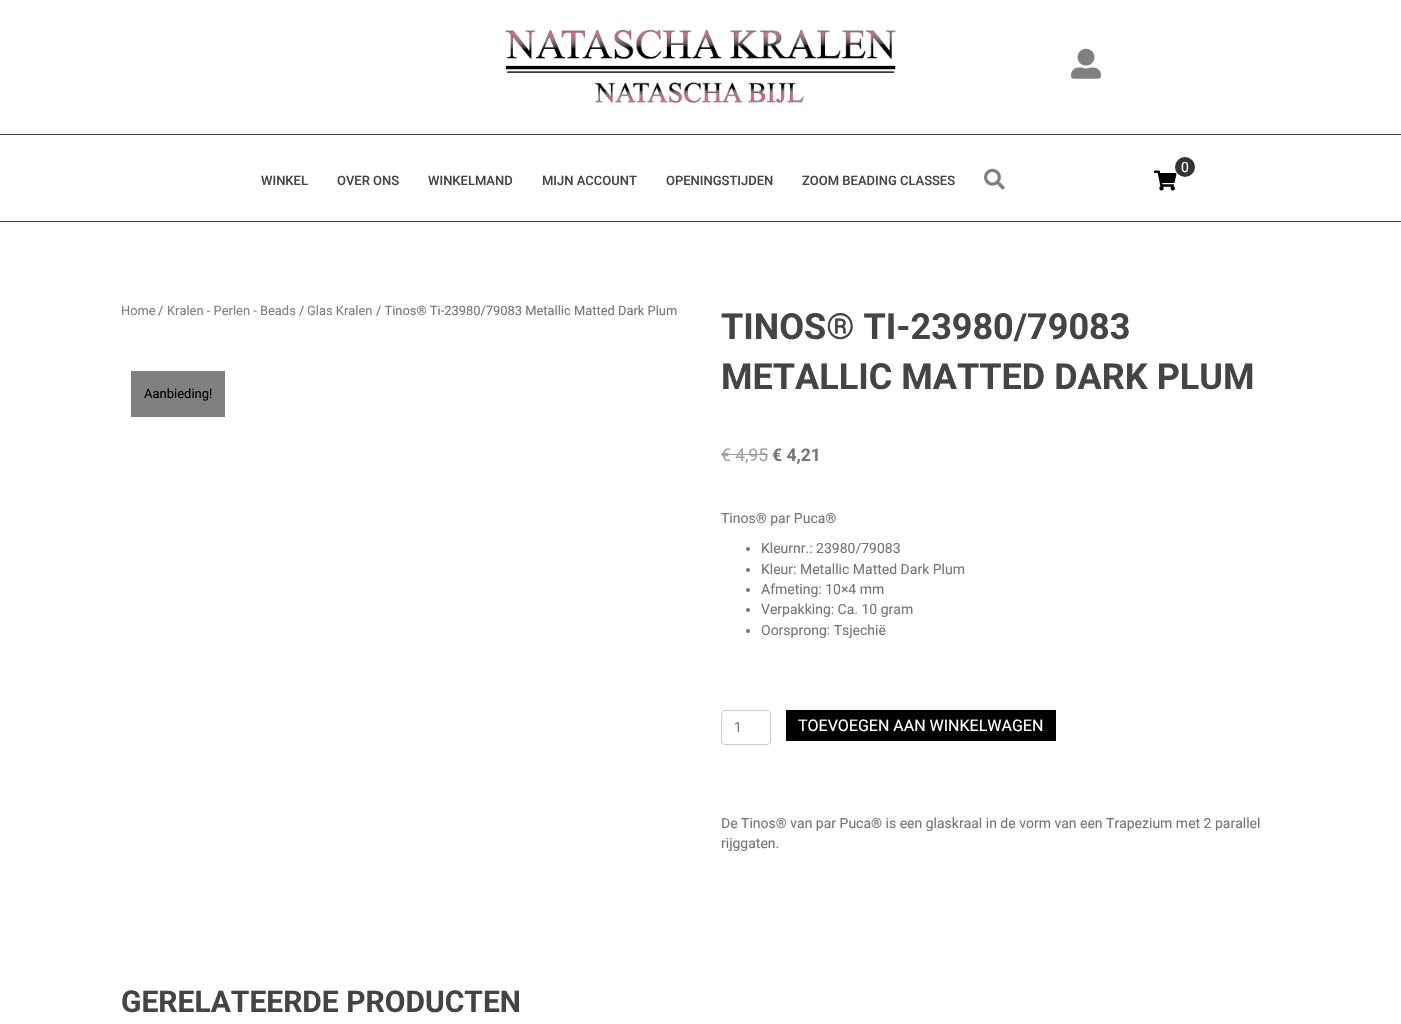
void draw(SkCanvas* canvas) {
	SkPaint fill;
	fill.setAntiAlias(true);
	auto makeFont = [&](const char* family, int weight, float size, bool italic = false) {
		SkFontStyle style(weight, SkFontStyle::kNormal_Width,
			italic ? SkFontStyle::kItalic_Slant : SkFontStyle::kUpright_Slant);
		SkFont result(fontMgr->matchFamilyStyle(family, style), size);
		result.setSubpixel(true);
		return result;
	};
	auto text = [&](const char* s, float x, float y, const SkFont& font) {
		canvas->drawString(s, x, y, font, fill);
	};
	auto box = [&](float l, float t, float r, float b) {
		canvas->drawRect(SkRect::MakeLTRB(l, t, r, b), fill);
	};
	auto picture = [&](const char* path, float l, float t, float r, float b) {
		auto image = SkImages::DeferredFromEncodedData(SkData::MakeFromFileName(path));
		canvas->drawImageRect(image, SkRect::MakeLTRB(l, t, r, b), SkSamplingOptions());
	};
	canvas->clear(0xFFFFFFFF);
	picture("image0.png", 505, 29, 896, 103);
	picture("image1.png", 1071, 48, 1101, 79);
	fill.setColor(0xFF444444);
	box(0, 134, 1401, 135);
	box(0, 221, 1401, 222);
	picture("image2.png", 1154, 170, 1177, 191);
	fill.setColor(0xFF333333);
	canvas->drawCircle(1185, 167, 10, fill);
	picture("image3.png", 984, 168, 1005, 190);
	fill.setColor(0xFF808080);
	box(131, 371, 225, 417);
	fill.setColor(0xFF9E9E9E);
	box(721, 454, 768, 455);
	fill.setColor(0xFF757575);
	canvas->drawCircle(748, 549, 2, fill);
	canvas->drawCircle(748, 570, 2, fill);
	canvas->drawCircle(748, 590, 2, fill);
	canvas->drawCircle(748, 610, 2, fill);
	canvas->drawCircle(748, 631, 2, fill);
	fill.setStyle(SkPaint::kStroke_Style);
	fill.setStrokeWidth(1);
	fill.setColor(0xFFCCCCCC);
	canvas->drawRoundRect(SkRect::MakeLTRB(721.5f, 710.5f, 770.5f, 744.5f), 3.5f, 3.5f, fill);
	fill.setStyle(SkPaint::kFill_Style);
	fill.setColor(0xFF000000);
	box(786, 710, 1056, 741);
	auto font1 = makeFont("Roboto", 400, 14);
	fill.setColor(0xFFFFFFFF);
	text("0", 1181, 172, font1);
	auto font2 = makeFont("Roboto", 500, 13);
	fill.setColor(0xFF444444);
	text("WINKEL", 261, 185, font2);
	text("OVER ONS", 337, 185, font2);
	text("WINKELMAND", 428, 185, font2);
	text("MIJN ACCOUNT", 542, 185, font2);
	text("OPENINGSTIJDEN", 666, 185, font2);
	text("ZOOM BEADING CLASSES", 802, 185, font2);
	auto font3 = makeFont("Roboto", 400, 12.9f);
	fill.setColor(0xFF808080);
	text("Home", 121, 315, font3);
	fill.setColor(0xFF757575);
	text("/", 158, 315, font3);
	fill.setColor(0xFF808080);
	text("Kralen - Perlen - Beads", 167, 315, font3);
	fill.setColor(0xFF757575);
	text("/", 299, 315, font3);
	fill.setColor(0xFF808080);
	text("Glas Kralen", 307, 315, font3);
	fill.setColor(0xFF757575);
	text("/ Tinos® Ti-23980/79083 Metallic Matted Dark Plum", 376, 315, font3);
	auto font4 = makeFont("Roboto", 400, 13);
	fill.setColor(0xFF000000);
	text("Aanbieding!", 144, 398, font4);
	auto font5 = makeFont("Roboto", 700, 36);
	fill.setColor(0xFF444444);
	text("TINOS® TI-23980/79083", 721, 339, font5);
	text("METALLIC MATTED DARK PLUM", 721, 389, font5);
	auto font6 = makeFont("Roboto", 400, 17.5f);
	fill.setColor(0xFF9E9E9E);
	text("€ 4,95", 721, 461, font6);
	auto font7 = makeFont("Roboto", 700, 17.5f);
	fill.setColor(0xFF757575);
	text("€ 4,21", 772, 461, font7);
	text("Tinos® par Puca®", 721, 523, font1);
	text("Kleurnr.: 23980/79083", 761, 553, font1);
	text("Kleur: Metallic Matted Dark Plum", 761, 574, font1);
	text("Afmeting: 10×4 mm", 761, 594, font1);
	text("Verpakking: Ca. 10 gram", 761, 614, font1);
	text("Oorsprong: Tsjechië", 761, 635, font1);
	text("1", 734, 732, font1);
	auto font8 = makeFont("Roboto", 400, 16);
	fill.setColor(0xFFFFFFFF);
	text("TOEVOEGEN AAN WINKELWAGEN", 798, 731, font8);
	fill.setColor(0xFF757575);
	text("De Tinos® van par Puca® is een glaskraal in de vorm van een Trapezium met 2 parallel", 721, 828, font1);
	text("rijggaten.", 721, 848, font1);
	auto font9 = makeFont("Roboto", 700, 30);
	fill.setColor(0xFF444444);
	text("GERELATEERDE PRODUCTEN", 121, 1012, font9);
}
